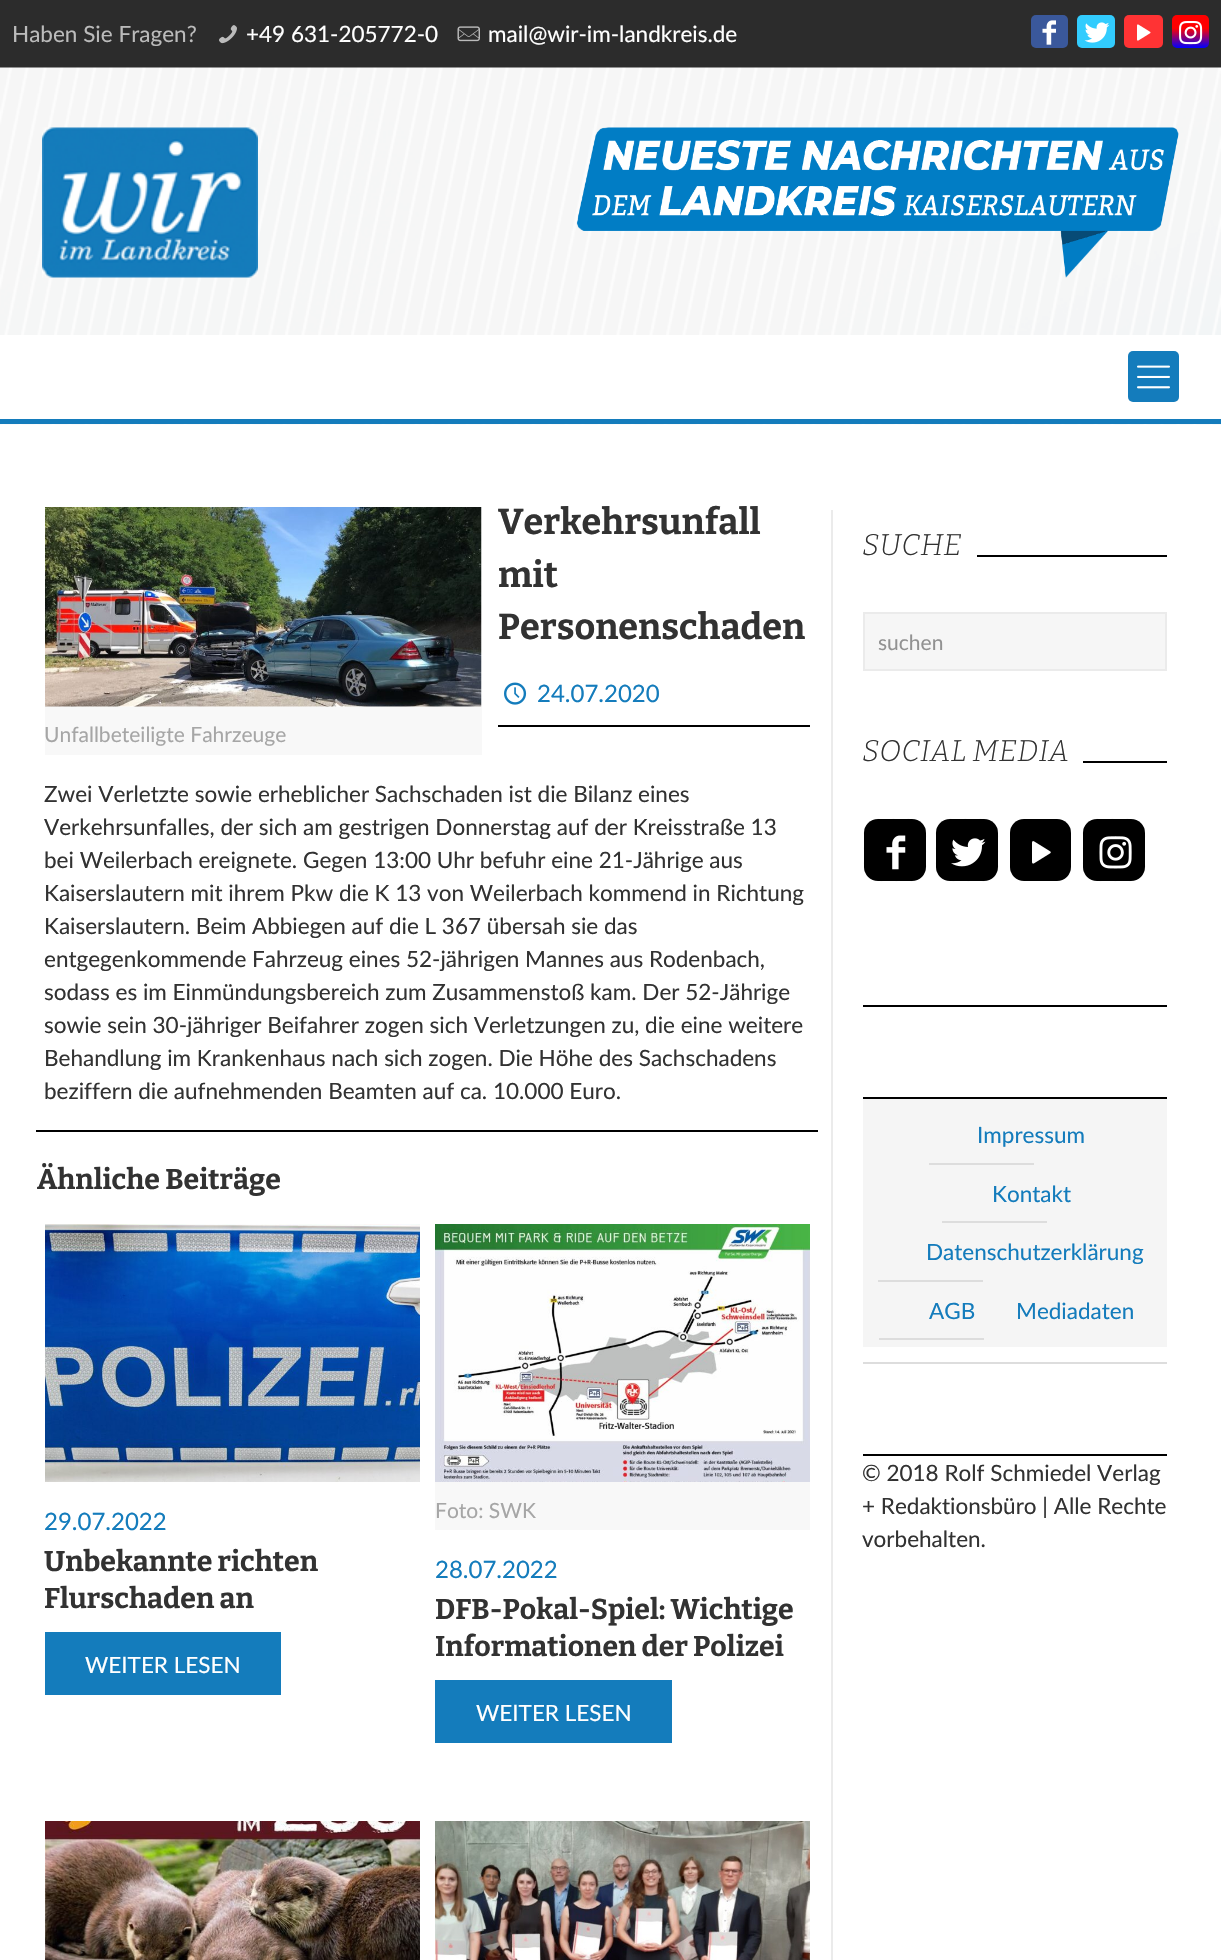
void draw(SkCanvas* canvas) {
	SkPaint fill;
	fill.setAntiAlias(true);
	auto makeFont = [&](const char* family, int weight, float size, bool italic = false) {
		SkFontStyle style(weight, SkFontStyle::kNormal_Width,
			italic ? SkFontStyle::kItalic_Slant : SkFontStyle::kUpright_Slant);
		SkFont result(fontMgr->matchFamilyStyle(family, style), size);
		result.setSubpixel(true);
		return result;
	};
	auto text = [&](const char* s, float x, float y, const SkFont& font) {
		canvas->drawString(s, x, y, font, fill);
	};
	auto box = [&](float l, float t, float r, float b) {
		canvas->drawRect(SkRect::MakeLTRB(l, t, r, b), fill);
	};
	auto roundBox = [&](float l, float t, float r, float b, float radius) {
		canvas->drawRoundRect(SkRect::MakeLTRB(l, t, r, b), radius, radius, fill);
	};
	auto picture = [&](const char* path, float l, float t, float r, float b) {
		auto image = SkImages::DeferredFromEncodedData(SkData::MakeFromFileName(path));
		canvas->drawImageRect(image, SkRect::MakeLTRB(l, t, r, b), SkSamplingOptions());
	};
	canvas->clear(0xFFFFFFFF);
	fill.setColor(0xFF2C2C2C);
	box(0, 0, 1221, 68);
	picture("image0.png", 219, 25, 237, 44);
	picture("image1.png", 457, 26, 480, 42);
	fill.setColor(0xFF3A589B);
	roundBox(1031, 15, 1068, 48, 5);
	picture("image2.png", 1042, 20, 1056, 45);
	fill.setColor(0xFF32CCFE);
	roundBox(1077, 15, 1115, 48, 5);
	picture("image3.png", 1084, 22, 1110, 43);
	fill.setColor(0xFFFF3334);
	roundBox(1124, 15, 1163, 48, 5);
	picture("image4.png", 1137, 24, 1151, 41);
	{
		const SkColor colors[] = {0xFF0000FF, 0xFFFF0000};
		const float stops[] = {0, 0.6f};
		const SkPoint ends[] = {{1190, 48}, {1190, 15}};
		fill.setShader(SkGradientShader::MakeLinear(ends, colors, stops, 2, SkTileMode::kClamp));
		fill.setAlpha(255);
	}
	roundBox(1172, 15, 1209, 48, 5);
	picture("image5.png", 1179, 21, 1203, 45);
	picture("image6.png", 0, 67, 1221, 425);
	picture("image7.png", 42, 127, 258, 278);
	picture("image8.png", 576, 127, 1179, 278);
	fill.setShader(nullptr);
	fill.setColor(0xFFFFFFFF);
	box(0, 335, 1221, 419);
	fill.setColor(0xFF147CBC);
	box(0, 419, 1221, 424);
	roundBox(1128, 351, 1179, 402, 5);
	picture("image9.png", 1137, 365, 1170, 389);
	fill.setColor(0xFF000000);
	box(498, 725, 810, 727);
	picture("image10.png", 504, 682, 527, 705);
	picture("image11.png", 45, 507, 482, 707);
	fill.setColor(0xFFF8F8F8);
	box(45, 707, 482, 755);
	fill.setColor(0xFF000000);
	box(36, 1130, 818, 1132);
	picture("image12.png", 45, 1224, 420, 1482);
	fill.setColor(0xFF147CBC);
	box(45, 1632, 281, 1695);
	picture("image13.png", 435, 1224, 810, 1482);
	fill.setColor(0xFFF8F8F8);
	box(435, 1482, 810, 1530);
	fill.setColor(0xFF147CBC);
	box(435, 1680, 672, 1743);
	picture("image14.png", 45, 1821, 420, 1960);
	picture("image15.png", 435, 1821, 810, 1960);
	fill.setColor(0xFFEBEBEB);
	box(831, 510, 833, 1960);
	fill.setColor(0xFF000000);
	box(977, 555, 1167, 557);
	fill.setColor(0xFFF6F6F6);
	canvas->drawRect(SkRect::MakeLTRB(864, 613, 1166, 670), fill);
	fill.setStyle(SkPaint::kStroke_Style);
	fill.setStrokeWidth(2);
	fill.setColor(0xFFEBEBEB);
	canvas->drawRect(SkRect::MakeLTRB(864, 613, 1166, 670), fill);
	fill.setStyle(SkPaint::kFill_Style);
	fill.setColor(0xFF000000);
	box(1083, 761, 1167, 763);
	picture("image16.png", 863, 818, 927, 882);
	roundBox(864, 819, 926, 881, 14);
	picture("image17.png", 886, 835, 906, 870);
	picture("image16.png", 935, 818, 999, 882);
	roundBox(936, 819, 998, 881, 14);
	picture("image18.png", 951, 838, 986, 867);
	roundBox(1010, 819, 1071, 881, 14);
	picture("image19.png", 1032, 841, 1051, 864);
	picture("image16.png", 1082, 818, 1146, 882);
	roundBox(1083, 819, 1145, 881, 14);
	picture("image20.png", 1099, 836, 1132, 869);
	box(863, 1005, 1167, 1007);
	box(863, 1097, 1167, 1099);
	fill.setColor(0xFFDDDDDD);
	box(863, 1362, 1167, 1364);
	fill.setColor(0xFFF5F5F5);
	box(863, 1099, 1167, 1347);
	fill.setColor(0xFFDDDDDD);
	box(929, 1163, 1034, 1165);
	box(942, 1221, 1047, 1223);
	box(878, 1280, 983, 1282);
	box(879, 1338, 984, 1340);
	fill.setColor(0xFF000000);
	box(863, 1454, 1167, 1456);
	auto font1 = makeFont("Lato", 400, 22.5f);
	fill.setColor(0xFFBBBBBB);
	text("Haben Sie Fragen?", 12, 42, font1);
	fill.setColor(0xFFFFFFFF);
	text("+49 631-205772-0", 246, 42, font1);
	text("mail@wir-im-landkreis.de", 488, 42, font1);
	auto font2 = makeFont("Bitter", 700, 36);
	fill.setColor(0xFF323232);
	text("Verkehrsunfall", 498, 534, font2);
	text("mit", 498, 587, font2);
	text("Personenschaden", 498, 639, font2);
	auto font3 = makeFont("Lato", 400, 24);
	fill.setColor(0xFF147CBC);
	text("24.07.2020", 537, 702, font3);
	auto font4 = makeFont("Lato", 400, 21);
	fill.setColor(0xFFA6A6A6);
	text("Unfallbeteiligte Fahrzeuge", 44, 742, font4);
	fill.setColor(0xFF323232);
	text("Zwei Verletzte sowie erheblicher Sachschaden ist die Bilanz eines", 44, 802, font1);
	text("Verkehrsunfalles, der sich am gestrigen Donnerstag auf der Kreisstraße 13", 44, 835, font1);
	text("bei Weilerbach ereignete. Gegen 13:00 Uhr befuhr eine 21-Jährige aus", 44, 868, font1);
	text("Kaiserslautern mit ihrem Pkw die K 13 von Weilerbach kommend in Richtung", 44, 901, font1);
	text("Kaiserslautern. Beim Abbiegen auf die L 367 übersah sie das", 44, 934, font1);
	text("entgegenkommende Fahrzeug eines 52-jährigen Mannes aus Rodenbach,", 44, 967, font1);
	text("sodass es im Einmündungsbereich zum Zusammenstoß kam. Der 52-Jährige", 44, 1000, font1);
	text("sowie sein 30-jähriger Beifahrer zogen sich Verletzungen zu, die eine weitere", 44, 1033, font1);
	text("Behandlung im Krankenhaus nach sich zogen. Die Höhe des Sachschadens", 44, 1066, font1);
	text("beziffern die aufnehmenden Beamten auf ca. 10.000 Euro.", 44, 1099, font1);
	auto font5 = makeFont("Bitter", 700, 28.5f);
	text("Ähnliche Beiträge", 37, 1189, font5);
	fill.setColor(0xFF147CBC);
	text("29.07.2022", 44, 1530, font3);
	fill.setColor(0xFF323232);
	text("Unbekannte richten", 44, 1571, font5);
	text("Flurschaden an", 44, 1608, font5);
	fill.setColor(0xFFFFFFFF);
	text("WEITER LESEN", 85, 1673, font1);
	fill.setColor(0xFFA6A6A6);
	text("Foto: SWK", 435, 1518, font4);
	fill.setColor(0xFF147CBC);
	text("28.07.2022", 435, 1578, font3);
	fill.setColor(0xFF323232);
	text("DFB-Pokal-Spiel: Wichtige", 435, 1619, font5);
	text("Informationen der Polizei", 435, 1656, font5);
	fill.setColor(0xFFFFFFFF);
	text("WEITER LESEN", 476, 1721, font1);
	auto font6 = makeFont("Bitter", 300, 30, true);
	fill.setColor(0xFF323232);
	text("SUCHE", 862, 555, font6);
	fill.setColor(0xFF929292);
	text("suchen", 878, 650, font4);
	fill.setColor(0xFF323232);
	text("SOCIAL MEDIA", 862, 761, font6);
	fill.setColor(0xFF147CBC);
	text("Impressum", 977, 1143, font1);
	text("Kontakt", 992, 1202, font1);
	text("Datenschutzerklärung", 926, 1260, font1);
	text("AGB", 929, 1319, font1);
	text("Mediadaten", 1016, 1319, font1);
	fill.setColor(0xFF323232);
	text("© 2018 Rolf Schmiedel Verlag", 862, 1481, font1);
	text("+ Redaktionsbüro | Alle Rechte", 862, 1514, font1);
	text("vorbehalten.", 862, 1547, font1);
}
